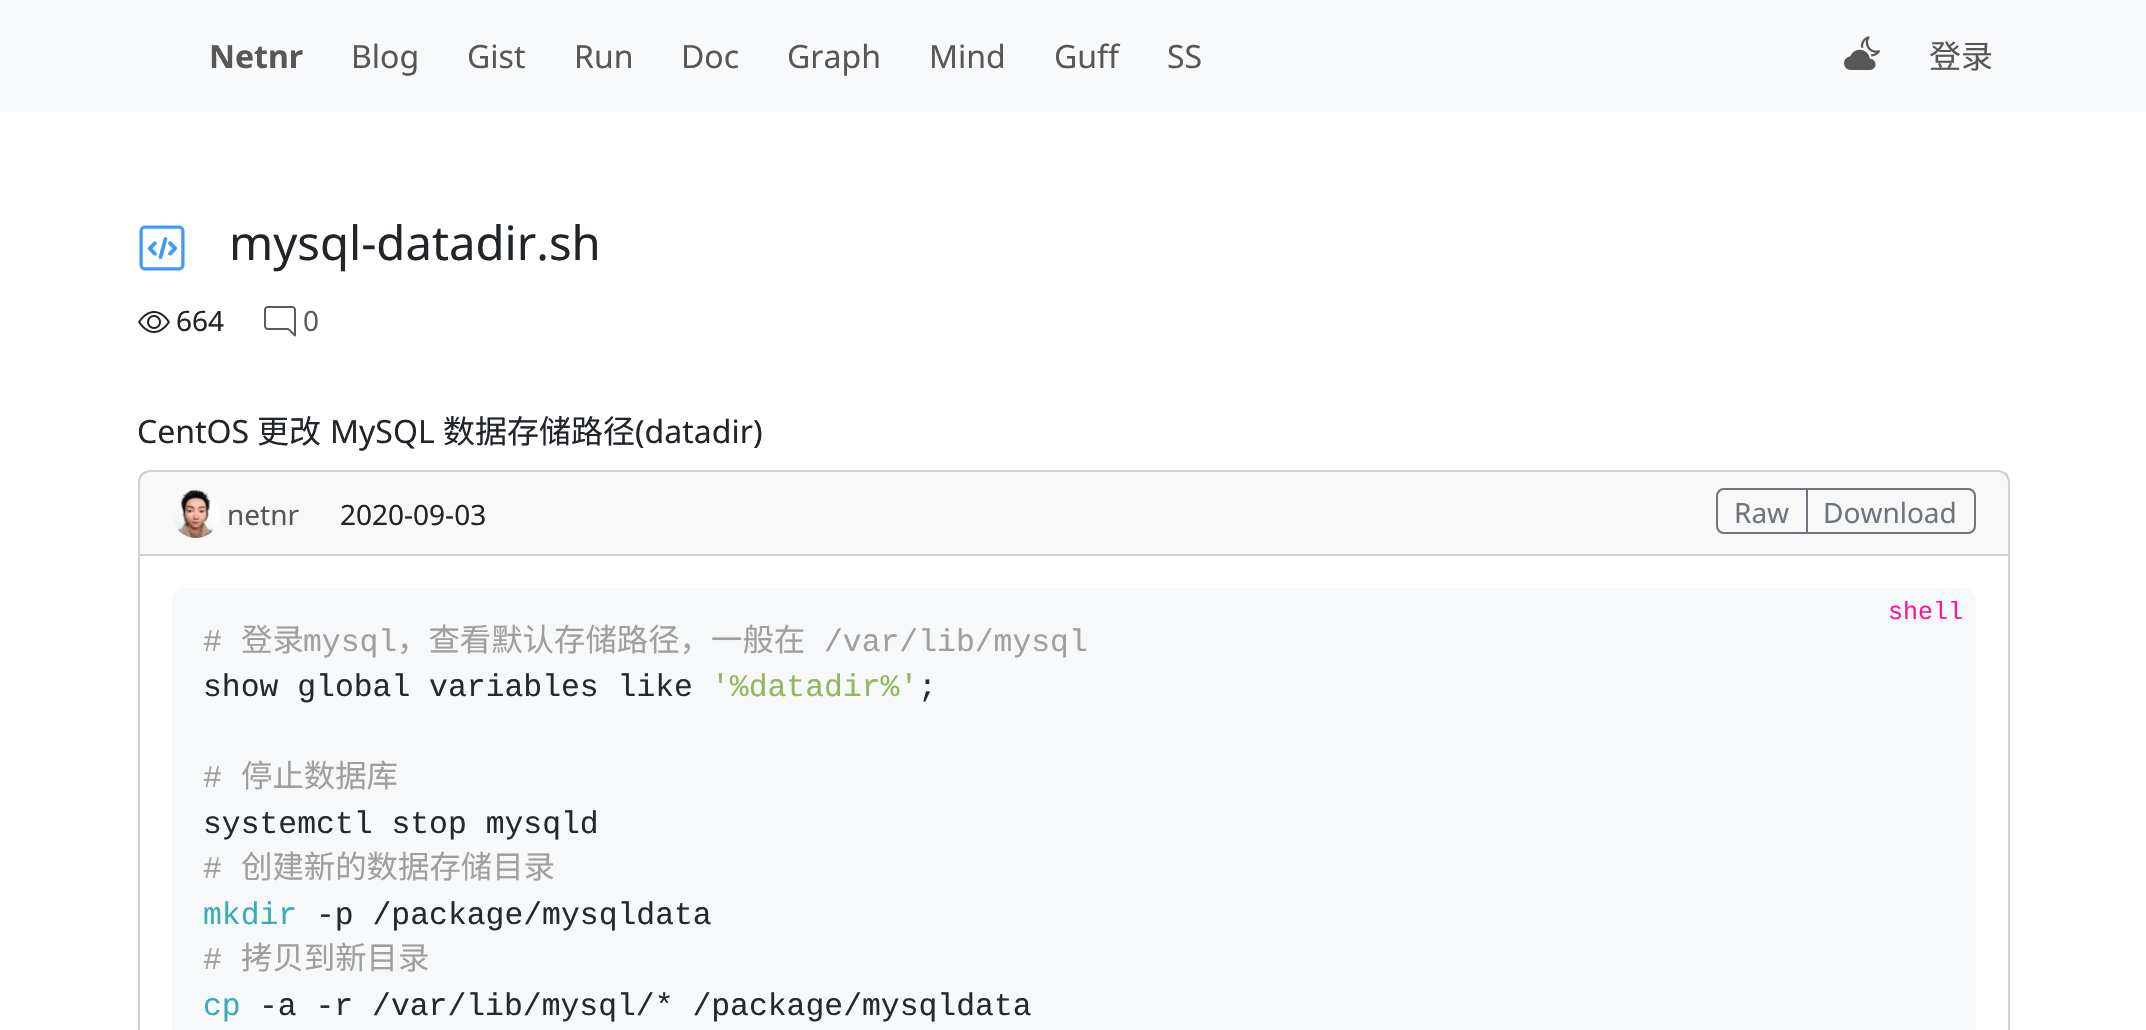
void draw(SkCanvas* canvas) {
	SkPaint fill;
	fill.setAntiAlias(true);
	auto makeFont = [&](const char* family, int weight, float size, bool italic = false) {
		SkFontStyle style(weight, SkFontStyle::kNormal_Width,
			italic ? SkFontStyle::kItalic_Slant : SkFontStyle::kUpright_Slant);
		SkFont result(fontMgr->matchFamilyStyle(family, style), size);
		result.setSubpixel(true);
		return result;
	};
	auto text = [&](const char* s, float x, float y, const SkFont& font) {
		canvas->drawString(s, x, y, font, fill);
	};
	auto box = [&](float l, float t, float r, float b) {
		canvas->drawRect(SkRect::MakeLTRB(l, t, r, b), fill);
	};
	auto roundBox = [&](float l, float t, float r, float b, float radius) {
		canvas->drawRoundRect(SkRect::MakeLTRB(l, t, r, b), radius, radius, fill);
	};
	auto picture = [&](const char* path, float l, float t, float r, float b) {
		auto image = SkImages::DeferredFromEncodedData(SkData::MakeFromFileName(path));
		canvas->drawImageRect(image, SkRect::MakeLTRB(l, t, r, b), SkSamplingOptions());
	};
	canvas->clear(0xFFFFFFFF);
	fill.setColor(0xFFF8F9FA);
	box(0, 0, 2146, 112);
	picture("image0.png", 1844, 36, 1880, 70);
	picture("image1.png", 139, 225, 185, 271);
	picture("image2.png", 138, 311, 170, 333);
	picture("image3.png", 264, 306, 296, 337);
	fill.setStyle(SkPaint::kStroke_Style);
	fill.setStrokeWidth(2);
	fill.setColor(0xFFD2D2D2);
	canvas->drawRoundRect(SkRect::MakeLTRB(139, 471, 2009, 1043), 11, 11, fill);
	fill.setStyle(SkPaint::kFill_Style);
	fill.setColor(0x08212529);
	box(140, 472, 2008, 554);
	fill.setColor(0xFFCDCDCD);
	box(140, 554, 2008, 556);
	picture("image4.png", 172, 490, 220, 538);
	fill.setStyle(SkPaint::kStroke_Style);
	fill.setColor(0xFF6C757D);
	canvas->drawPath(SkPathBuilder().moveTo(1724, 489).lineTo(1807, 489).lineTo(1807, 533).lineTo(1724, 533).cubicTo(1720, 533, 1717, 530, 1717, 526).lineTo(1717, 496).cubicTo(1717, 492, 1720, 489, 1724, 489).close().detach(), fill);
	canvas->drawPath(SkPathBuilder().moveTo(1807, 489).lineTo(1968, 489).cubicTo(1972, 489, 1975, 492, 1975, 496).lineTo(1975, 526).cubicTo(1975, 530, 1972, 533, 1968, 533).lineTo(1807, 533).close().detach(), fill);
	fill.setStyle(SkPaint::kFill_Style);
	fill.setColor(0xFFF6F8FA);
	roundBox(172, 588, 1976, 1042, 12);
	auto font1 = makeFont("Noto Sans", 700, 32);
	fill.setColor(0xFF575758);
	text("Netnr", 209, 68, font1);
	auto font2 = makeFont("Noto Sans", 400, 32);
	text("Blog", 351, 68, font2);
	text("Gist", 467, 68, font2);
	text("Run", 574, 68, font2);
	text("Doc", 681, 68, font2);
	text("Graph", 787, 68, font2);
	text("Mind", 929, 68, font2);
	text("Guff", 1054, 68, font2);
	text("SS", 1167, 68, font2);
	auto font3 = makeFont("Noto Sans CJK SC", 400, 32);
	text("登录", 1929, 68, font3);
	auto font4 = makeFont("Noto Sans", 400, 47.25f);
	fill.setColor(0xFF212529);
	text("mysql-datadir.sh", 229, 260, font4);
	auto font5 = makeFont("Noto Sans", 400, 28);
	text("664", 176, 331, font5);
	fill.setColor(0xFF595C5F);
	text("0", 303, 331, font5);
	fill.setColor(0xFF212529);
	text("CentOS", 137, 443, font2);
	text("更改", 257, 443, font3);
	text("MySQL", 330, 443, font2);
	text("数据存储路径", 443, 443, font3);
	text("(datadir)", 635, 443, font2);
	fill.setColor(0xFF575758);
	text("netnr", 227, 525, font5);
	fill.setColor(0xFF212529);
	text("2020-09-03", 340, 525, font5);
	fill.setColor(0xFF6C757D);
	text("Raw", 1734, 523, font5);
	text("Download", 1823, 523, font5);
	auto font6 = makeFont("Liberation Mono", 400, 25);
	fill.setColor(0xFFFF1493);
	text("shell", 1888, 619, font6);
	auto font7 = makeFont("Liberation Mono", 400, 31.4f);
	fill.setColor(0xFF9F9F9F);
	text("#", 203, 651, font7);
	auto font8 = makeFont("Noto Sans CJK SC", 400, 31.4f);
	text("登录", 241, 651, font8);
	text("mysql", 303, 651, font7);
	text("，查看默认存储路径，一般在", 397, 651, font8);
	text("/var/lib/mysql", 824, 651, font7);
	fill.setColor(0xFF24292F);
	text("show global variables like", 203, 696, font7);
	fill.setColor(0xFF91B859);
	text("'%datadir%'", 711, 696, font7);
	fill.setColor(0xFF24292F);
	text(";", 918, 696, font7);
	fill.setColor(0xFF9F9F9F);
	text("#", 203, 787, font7);
	text("停止数据库", 241, 787, font8);
	fill.setColor(0xFF24292F);
	text("systemctl stop mysqld", 203, 833, font7);
	fill.setColor(0xFF9F9F9F);
	text("#", 203, 878, font7);
	text("创建新的数据存储目录", 241, 878, font8);
	fill.setColor(0xFF39ADB5);
	text("mkdir", 203, 924, font7);
	fill.setColor(0xFF24292F);
	text("-p /package/mysqldata", 316, 924, font7);
	fill.setColor(0xFF9F9F9F);
	text("#", 203, 969, font7);
	text("拷贝到新目录", 241, 969, font8);
	fill.setColor(0xFF39ADB5);
	text("cp", 203, 1015, font7);
	fill.setColor(0xFF24292F);
	text("-a -r /var/lib/mysql/* /package/mysqldata", 259, 1015, font7);
}
